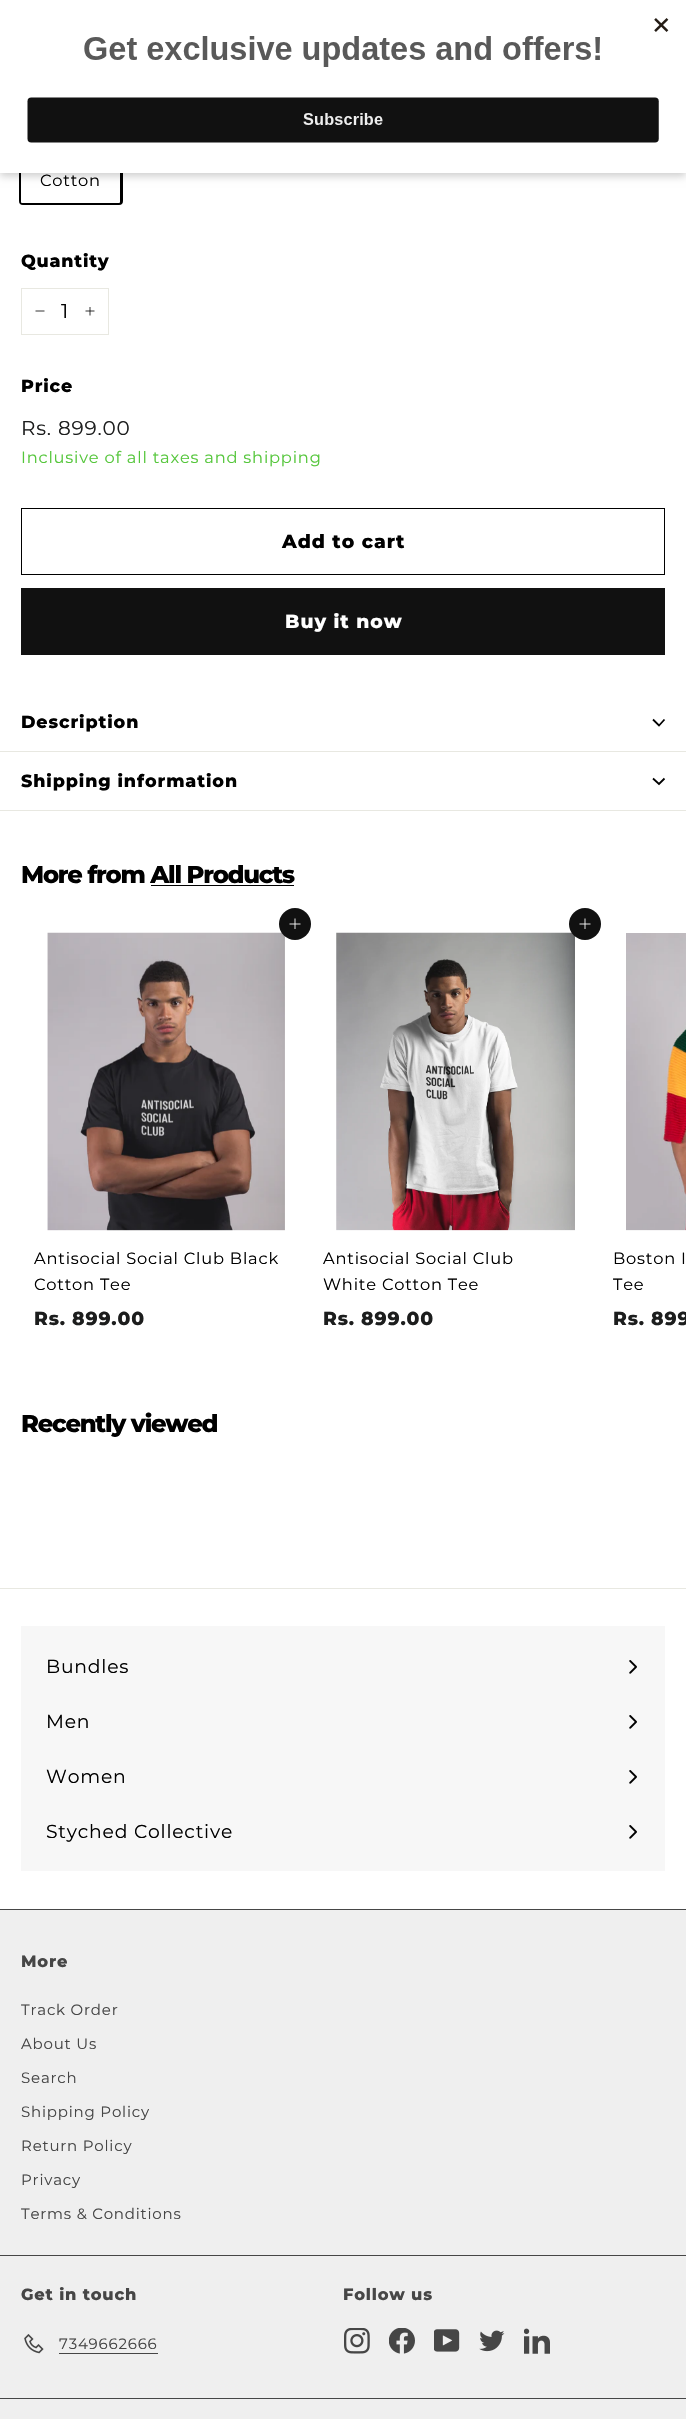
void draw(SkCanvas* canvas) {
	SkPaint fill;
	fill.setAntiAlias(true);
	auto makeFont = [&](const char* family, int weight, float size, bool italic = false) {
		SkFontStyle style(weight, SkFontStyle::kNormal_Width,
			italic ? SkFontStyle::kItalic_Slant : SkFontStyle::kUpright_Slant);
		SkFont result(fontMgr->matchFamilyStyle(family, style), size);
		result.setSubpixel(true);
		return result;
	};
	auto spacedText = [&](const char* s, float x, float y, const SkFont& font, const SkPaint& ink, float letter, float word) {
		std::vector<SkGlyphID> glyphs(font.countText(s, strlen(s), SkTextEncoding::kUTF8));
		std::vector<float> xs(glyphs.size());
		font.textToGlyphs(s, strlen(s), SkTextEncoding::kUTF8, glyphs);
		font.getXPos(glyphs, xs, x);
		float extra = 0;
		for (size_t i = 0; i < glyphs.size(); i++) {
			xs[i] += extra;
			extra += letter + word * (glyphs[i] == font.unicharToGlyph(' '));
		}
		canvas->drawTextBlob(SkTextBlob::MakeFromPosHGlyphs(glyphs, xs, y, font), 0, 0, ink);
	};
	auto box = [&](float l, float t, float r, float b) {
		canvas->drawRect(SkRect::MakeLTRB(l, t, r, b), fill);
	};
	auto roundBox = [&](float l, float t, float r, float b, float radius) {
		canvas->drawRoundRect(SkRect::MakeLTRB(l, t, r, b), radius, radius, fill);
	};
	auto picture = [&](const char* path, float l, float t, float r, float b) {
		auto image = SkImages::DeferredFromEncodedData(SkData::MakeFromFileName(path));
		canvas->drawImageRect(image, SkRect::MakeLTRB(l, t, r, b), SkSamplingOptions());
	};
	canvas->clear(0xFFFFFFFF);
	fill.setColor(0xFFF7F7F7);
	box(21, 1626, 665, 1871);
	fill.setStyle(SkPaint::kStroke_Style);
	fill.setStrokeWidth(3);
	fill.setColor(0xFF000000);
	canvas->drawRoundRect(SkRect::MakeLTRB(20.5f, 157.5f, 121.5f, 203.5f), 2.5f, 2.5f, fill);
	fill.setStyle(SkPaint::kFill_Style);
	fill.setColor(0xFFFFFFFF);
	roundBox(21, 159, 120, 203, 1);
	fill.setColor(0x33000000);
	fill.setMaskFilter(SkMaskFilter::MakeBlur(kNormal_SkBlurStyle, 4));
	canvas->drawRect(SkRect::MakeLTRB(0, 4, 686, 176), fill);
	fill.setMaskFilter(nullptr);
	fill.setColor(0xFFFFFFFF);
	box(0, 0, 686, 173);
	picture("image0.png", 27, 18, 669, 143);
	fill.setStyle(SkPaint::kStroke_Style);
	fill.setStrokeWidth(1);
	fill.setColor(0xFFE8E8E1);
	canvas->drawRect(SkRect::MakeLTRB(21.5f, 288.5f, 108.5f, 334.5f), fill);
	fill.setStrokeWidth(0.8f);
	fill.setColor(0xFF000000);
	canvas->drawPath(SkPathBuilder().moveTo(44.5f, 311).lineTo(35.5f, 311).moveTo(90, 307).lineTo(90, 315.5f).moveTo(94.5f, 311).lineTo(85.5f, 311).detach(), fill);
	fill.setStrokeWidth(1);
	canvas->drawRect(SkRect::MakeLTRB(21.5f, 508.5f, 664.5f, 574.5f), fill);
	fill.setStyle(SkPaint::kFill_Style);
	fill.setColor(0xFF111111);
	box(21, 588, 665, 655);
	fill.setColor(0xFFE8E8E1);
	box(0, 751, 686, 752);
	fill.setStyle(SkPaint::kStroke_Style);
	fill.setStrokeWidth(1.8f);
	fill.setColor(0xFF000000);
	canvas->drawPath(SkPathBuilder().moveTo(653, 719.5f).lineTo(659, 725.5f).lineTo(664.5f, 719.5f).detach(), fill);
	fill.setStyle(SkPaint::kFill_Style);
	fill.setColor(0xFFE8E8E1);
	box(0, 810, 686, 811);
	fill.setStyle(SkPaint::kStroke_Style);
	fill.setColor(0xFF000000);
	canvas->drawPath(SkPathBuilder().moveTo(653, 778.5f).lineTo(659, 784).lineTo(664.5f, 778.5f).detach(), fill);
	fill.setStyle(SkPaint::kFill_Style);
	box(151, 885, 294, 886);
	picture("image1.png", 47, 932, 285, 1231);
	fill.setColor(0xFF111111);
	canvas->drawCircle(295, 924, 16, fill);
	fill.setStyle(SkPaint::kStroke_Style);
	fill.setStrokeWidth(0.9f);
	fill.setColor(0xFFFFFFFF);
	canvas->drawPath(SkPathBuilder().moveTo(295, 918.5f).lineTo(295, 929).moveTo(300.5f, 924).lineTo(289.5f, 924).detach(), fill);
	picture("image2.png", 336, 932, 575, 1231);
	fill.setStyle(SkPaint::kFill_Style);
	fill.setColor(0xFF111111);
	canvas->drawCircle(585, 924, 16, fill);
	fill.setStyle(SkPaint::kStroke_Style);
	fill.setColor(0xFFFFFFFF);
	canvas->drawPath(SkPathBuilder().moveTo(585, 918.5f).lineTo(585, 929).moveTo(590.5f, 924).lineTo(579.5f, 924).detach(), fill);
	picture("image3.png", 626, 933, 686, 1231);
	fill.setStyle(SkPaint::kFill_Style);
	fill.setColor(0xFFE8E8E1);
	box(0, 1588, 686, 1589);
	picture("image4.png", 629, 1660, 637, 1674);
	picture("image4.png", 629, 1715, 637, 1729);
	picture("image4.png", 629, 1770, 637, 1784);
	picture("image4.png", 629, 1825, 637, 1839);
	fill.setColor(0xFFEFEFEF);
	box(0, 1910, 686, 2419);
	fill.setColor(0xFF464646);
	box(0, 1909, 686, 1910);
	box(0, 2255, 686, 2256);
	picture("image5.png", 24, 2334, 44, 2354);
	box(59, 2353, 158, 2354);
	picture("image6.png", 344, 2328, 370, 2354);
	picture("image7.png", 389, 2328, 415, 2354);
	picture("image8.png", 434, 2329, 460, 2352);
	picture("image9.png", 479, 2330, 505, 2352);
	picture("image10.png", 524, 2328, 550, 2354);
	box(0, 2398, 686, 2399);
	auto font1 = makeFont("Montserrat", 400, 16.25f);
	fill.setColor(0xFF000000);
	spacedText("Cotton", 40, 186, font1, fill, 0.8f, 0);
	auto font2 = makeFont("Montserrat", 800, 17.5f);
	spacedText("Quantity", 21, 267, font2, fill, 0.8f, 0);
	auto font3 = makeFont("Montserrat", 400, 20);
	spacedText("1", 61, 318, font3, fill, 1, 0);
	spacedText("Price", 21, 392, font2, fill, 0.8f, 0);
	fill.setColor(0xFF1C1D1D);
	spacedText("Rs. 899.00", 21, 435, font3, fill, 0.8f, 0);
	fill.setColor(0xFF54C63A);
	spacedText("Inclusive of all taxes and shipping", 21, 463, font1, fill, 0.8f, 0);
	auto font4 = makeFont("Montserrat", 800, 18.75f);
	fill.setColor(0xFF000000);
	spacedText("Add to cart", 282, 548, font4, fill, 1, 0);
	fill.setColor(0xFFFFFFFF);
	spacedText("Buy it now", 285, 628, font4, fill, 1, 0);
	fill.setColor(0xFF000000);
	spacedText("Description", 21, 728, font2, fill, 0.9f, 0);
	spacedText("Shipping information", 21, 787, font2, fill, 0.9f, 0);
	auto font5 = makeFont("Montserrat", 800, 24.25f);
	spacedText("More from All Products", 21, 883, font5, fill, -1.25f, 0);
	spacedText("Antisocial Social Club Black", 34, 1264, font1, fill, 0.8f, 0);
	spacedText("Cotton Tee", 34, 1290, font1, fill, 0.8f, 0);
	fill.setColor(0xFF1C1D1D);
	spacedText("Rs. 899.00", 34, 1325, font4, fill, 0.8f, 0);
	fill.setColor(0xFF000000);
	spacedText("Antisocial Social Club", 323, 1264, font1, fill, 0.8f, 0);
	spacedText("White Cotton Tee", 323, 1290, font1, fill, 0.8f, 0);
	fill.setColor(0xFF1C1D1D);
	spacedText("Rs. 899.00", 323, 1325, font4, fill, 0.8f, 0);
	fill.setColor(0xFF000000);
	spacedText("Boston I", 613, 1264, font1, fill, 0.8f, 0);
	spacedText("Tee", 613, 1290, font1, fill, 0.8f, 0);
	fill.setColor(0xFF1C1D1D);
	spacedText("Rs. 899", 613, 1325, font4, fill, 0.8f, 0);
	fill.setColor(0xFF000000);
	spacedText("Recently viewed", 21, 1432, font5, fill, -1.25f, 0);
	auto font6 = makeFont("Montserrat", 400, 18.75f);
	spacedText("Bundles", 46, 1673, font6, fill, 0.8f, 0);
	spacedText("Men", 46, 1728, font6, fill, 0.8f, 0);
	spacedText("Women", 46, 1783, font6, fill, 0.8f, 0);
	spacedText("Styched Collective", 46, 1838, font6, fill, 0.8f, 0);
	auto font7 = makeFont("Montserrat", 800, 16.25f);
	fill.setColor(0xFF464646);
	spacedText("More", 21, 1967, font7, fill, 0.8f, 0);
	auto font8 = makeFont("Montserrat", 400, 15);
	spacedText("Track Order", 21, 2015, font8, fill, 0.8f, 0);
	spacedText("About Us", 21, 2049, font8, fill, 0.8f, 0);
	spacedText("Search", 21, 2083, font8, fill, 0.8f, 0);
	spacedText("Shipping Policy", 21, 2117, font8, fill, 0.8f, 0);
	spacedText("Return Policy", 21, 2151, font8, fill, 0.8f, 0);
	spacedText("Privacy", 21, 2185, font8, fill, 0.8f, 0);
	spacedText("Terms & Conditions", 21, 2219, font8, fill, 0.8f, 0);
	spacedText("Get in touch", 21, 2300, font7, fill, 0.8f, 0);
	spacedText("7349662666", 59, 2349, font8, fill, 0.8f, 0);
	spacedText("Follow us", 343, 2300, font7, fill, 0.8f, 0);
}
